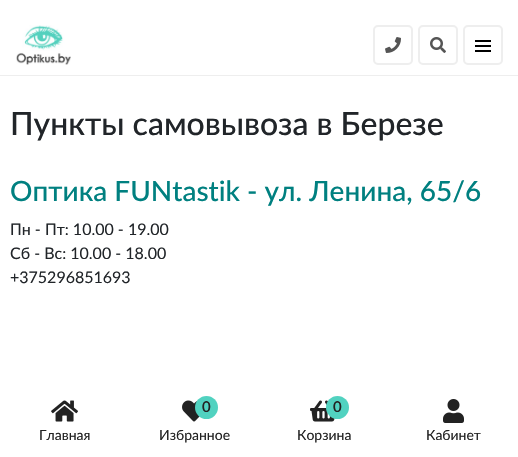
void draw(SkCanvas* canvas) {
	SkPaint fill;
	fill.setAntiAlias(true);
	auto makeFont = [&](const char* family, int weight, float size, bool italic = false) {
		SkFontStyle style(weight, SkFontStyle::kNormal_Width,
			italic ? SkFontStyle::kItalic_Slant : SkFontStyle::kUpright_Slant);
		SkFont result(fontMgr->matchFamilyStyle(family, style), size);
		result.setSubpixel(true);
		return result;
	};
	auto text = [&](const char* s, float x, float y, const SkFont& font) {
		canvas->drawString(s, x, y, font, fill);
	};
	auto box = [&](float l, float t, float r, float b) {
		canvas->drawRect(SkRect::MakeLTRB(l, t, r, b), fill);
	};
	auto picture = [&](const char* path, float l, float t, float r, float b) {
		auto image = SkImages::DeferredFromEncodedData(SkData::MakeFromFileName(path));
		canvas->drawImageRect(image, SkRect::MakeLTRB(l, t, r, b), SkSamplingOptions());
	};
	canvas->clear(0xFFFFFFFF);
	fill.setColor(0xFFEEEEEE);
	box(0, 75, 518, 76);
	picture("image0.png", 16, 25, 71, 65);
	fill.setStyle(SkPaint::kStroke_Style);
	fill.setStrokeWidth(2);
	canvas->drawRoundRect(SkRect::MakeLTRB(374, 26, 412, 64), 4, 4, fill);
	picture("image1.png", 385, 37, 401, 53);
	canvas->drawRoundRect(SkRect::MakeLTRB(419, 26, 457, 64), 4, 4, fill);
	picture("image2.png", 430, 37, 446, 53);
	canvas->drawRoundRect(SkRect::MakeLTRB(464, 26, 502, 64), 4, 4, fill);
	fill.setStyle(SkPaint::kFill_Style);
	fill.setColor(0xFF000000);
	box(475, 40, 491, 42);
	box(475, 45, 491, 47);
	box(475, 50, 491, 52);
	picture("image3.png", 51, 400, 78, 422);
	picture("image4.png", 182, 400, 200, 422);
	fill.setColor(0xFF51D2C0);
	canvas->drawCircle(206.5f, 407.5f, 11.5f, fill);
	picture("image5.png", 310, 400, 335, 422);
	canvas->drawCircle(337.5f, 407.5f, 11.5f, fill);
	picture("image6.png", 443, 399, 464, 423);
	auto font1 = makeFont("Lato", 500, 32);
	fill.setColor(0xFF212529);
	text("Пункты самовывоза в Березе", 10, 135, font1);
	auto font2 = makeFont("Lato", 500, 28);
	fill.setColor(0xFF008080);
	text("Оптика FUNtastik - ул. Ленина, 65/6", 10, 201, font2);
	auto font3 = makeFont("Lato", 400, 16);
	fill.setColor(0xFF212529);
	text("Пн - Пт: 10.00 - 19.00", 10, 235, font3);
	text("Сб - Вс: 10.00 - 18.00", 10, 259, font3);
	text("+375296851693", 10, 283, font3);
	auto font4 = makeFont("Lato", 400, 14);
	fill.setColor(0xFF222222);
	text("Главная", 39, 440, font4);
	auto font5 = makeFont("Lato", 600, 15);
	text("0", 202, 412, font5);
	text("Избранное", 159, 440, font4);
	text("0", 333, 412, font5);
	text("Корзина", 297, 440, font4);
	text("Кабинет", 426, 440, font4);
}
